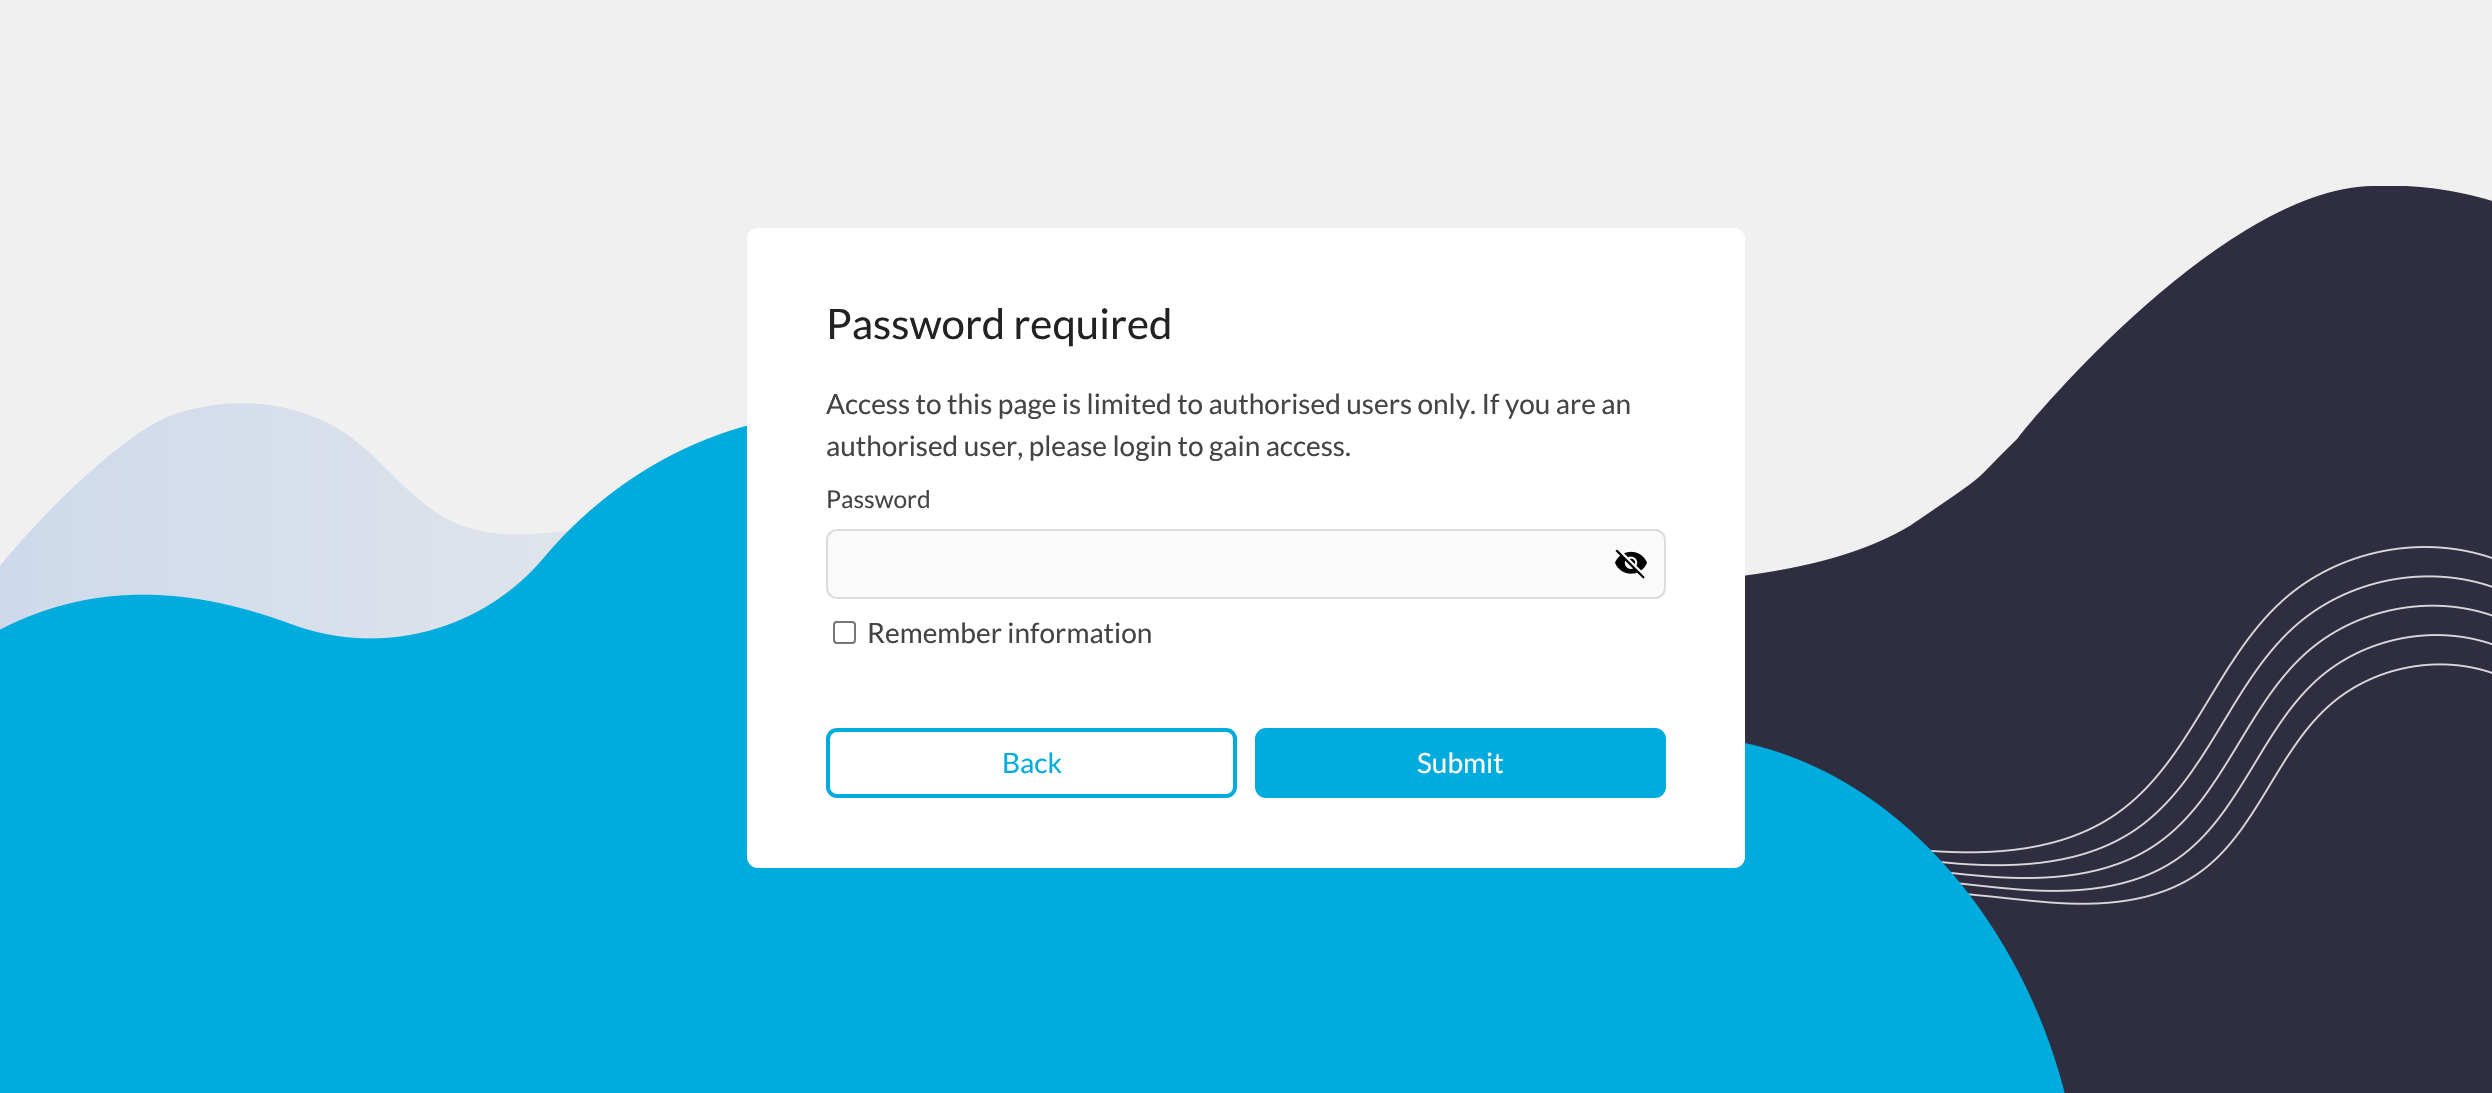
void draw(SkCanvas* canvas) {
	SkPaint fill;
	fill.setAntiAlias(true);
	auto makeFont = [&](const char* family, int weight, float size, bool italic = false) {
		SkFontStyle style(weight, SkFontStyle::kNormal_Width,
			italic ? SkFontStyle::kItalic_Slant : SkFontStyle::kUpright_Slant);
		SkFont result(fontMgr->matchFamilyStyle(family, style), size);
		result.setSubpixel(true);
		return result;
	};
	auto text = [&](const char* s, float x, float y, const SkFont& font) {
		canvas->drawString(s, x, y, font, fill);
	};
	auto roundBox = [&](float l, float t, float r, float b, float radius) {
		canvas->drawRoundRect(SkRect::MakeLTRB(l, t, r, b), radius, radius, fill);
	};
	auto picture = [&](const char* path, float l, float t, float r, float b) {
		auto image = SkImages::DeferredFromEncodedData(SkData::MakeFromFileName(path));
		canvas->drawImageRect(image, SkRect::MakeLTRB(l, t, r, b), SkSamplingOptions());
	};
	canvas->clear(0xFFF0F0F0);
	picture("image0.png", 0, 186, 2492, 1093);
	fill.setColor(0xFFFFFFFF);
	roundBox(747, 228, 1745, 868, 11);
	fill.setColor(0xFFFAFAFA);
	canvas->drawRoundRect(SkRect::MakeLTRB(827, 530, 1665, 598), 10, 10, fill);
	fill.setStyle(SkPaint::kStroke_Style);
	fill.setStrokeWidth(2);
	fill.setColor(0xFFDDDDDD);
	canvas->drawRoundRect(SkRect::MakeLTRB(827, 530, 1665, 598), 10, 10, fill);
	picture("image1.png", 1615, 549, 1647, 579);
	fill.setColor(0xFF767676);
	canvas->drawRoundRect(SkRect::MakeLTRB(834, 622, 855, 643), 3, 3, fill);
	fill.setStrokeWidth(4);
	fill.setColor(0xFF00ABDE);
	canvas->drawRoundRect(SkRect::MakeLTRB(828, 730, 1235, 796), 9, 9, fill);
	fill.setStyle(SkPaint::kFill_Style);
	canvas->drawRoundRect(SkRect::MakeLTRB(1257, 730, 1664, 796), 9, 9, fill);
	fill.setStyle(SkPaint::kStroke_Style);
	canvas->drawRoundRect(SkRect::MakeLTRB(1257, 730, 1664, 796), 9, 9, fill);
	auto font1 = makeFont("Lato", 400, 42);
	fill.setStyle(SkPaint::kFill_Style);
	fill.setColor(0xFF222222);
	text("Password required", 826, 339, font1);
	auto font2 = makeFont("Lato", 400, 28);
	fill.setColor(0xFF444444);
	text("Access to this page is limited to authorised users only. If you are an", 826, 414, font2);
	text("authorised user, please login to gain access.", 826, 456, font2);
	auto font3 = makeFont("Lato", 400, 24.5f);
	text("Password", 826, 508, font3);
	text("Remember information", 867, 643, font2);
	fill.setColor(0xFF00ABDE);
	text("Back", 1002, 773, font2);
	fill.setColor(0xFFFFFFFF);
	text("Submit", 1417, 773, font2);
}
